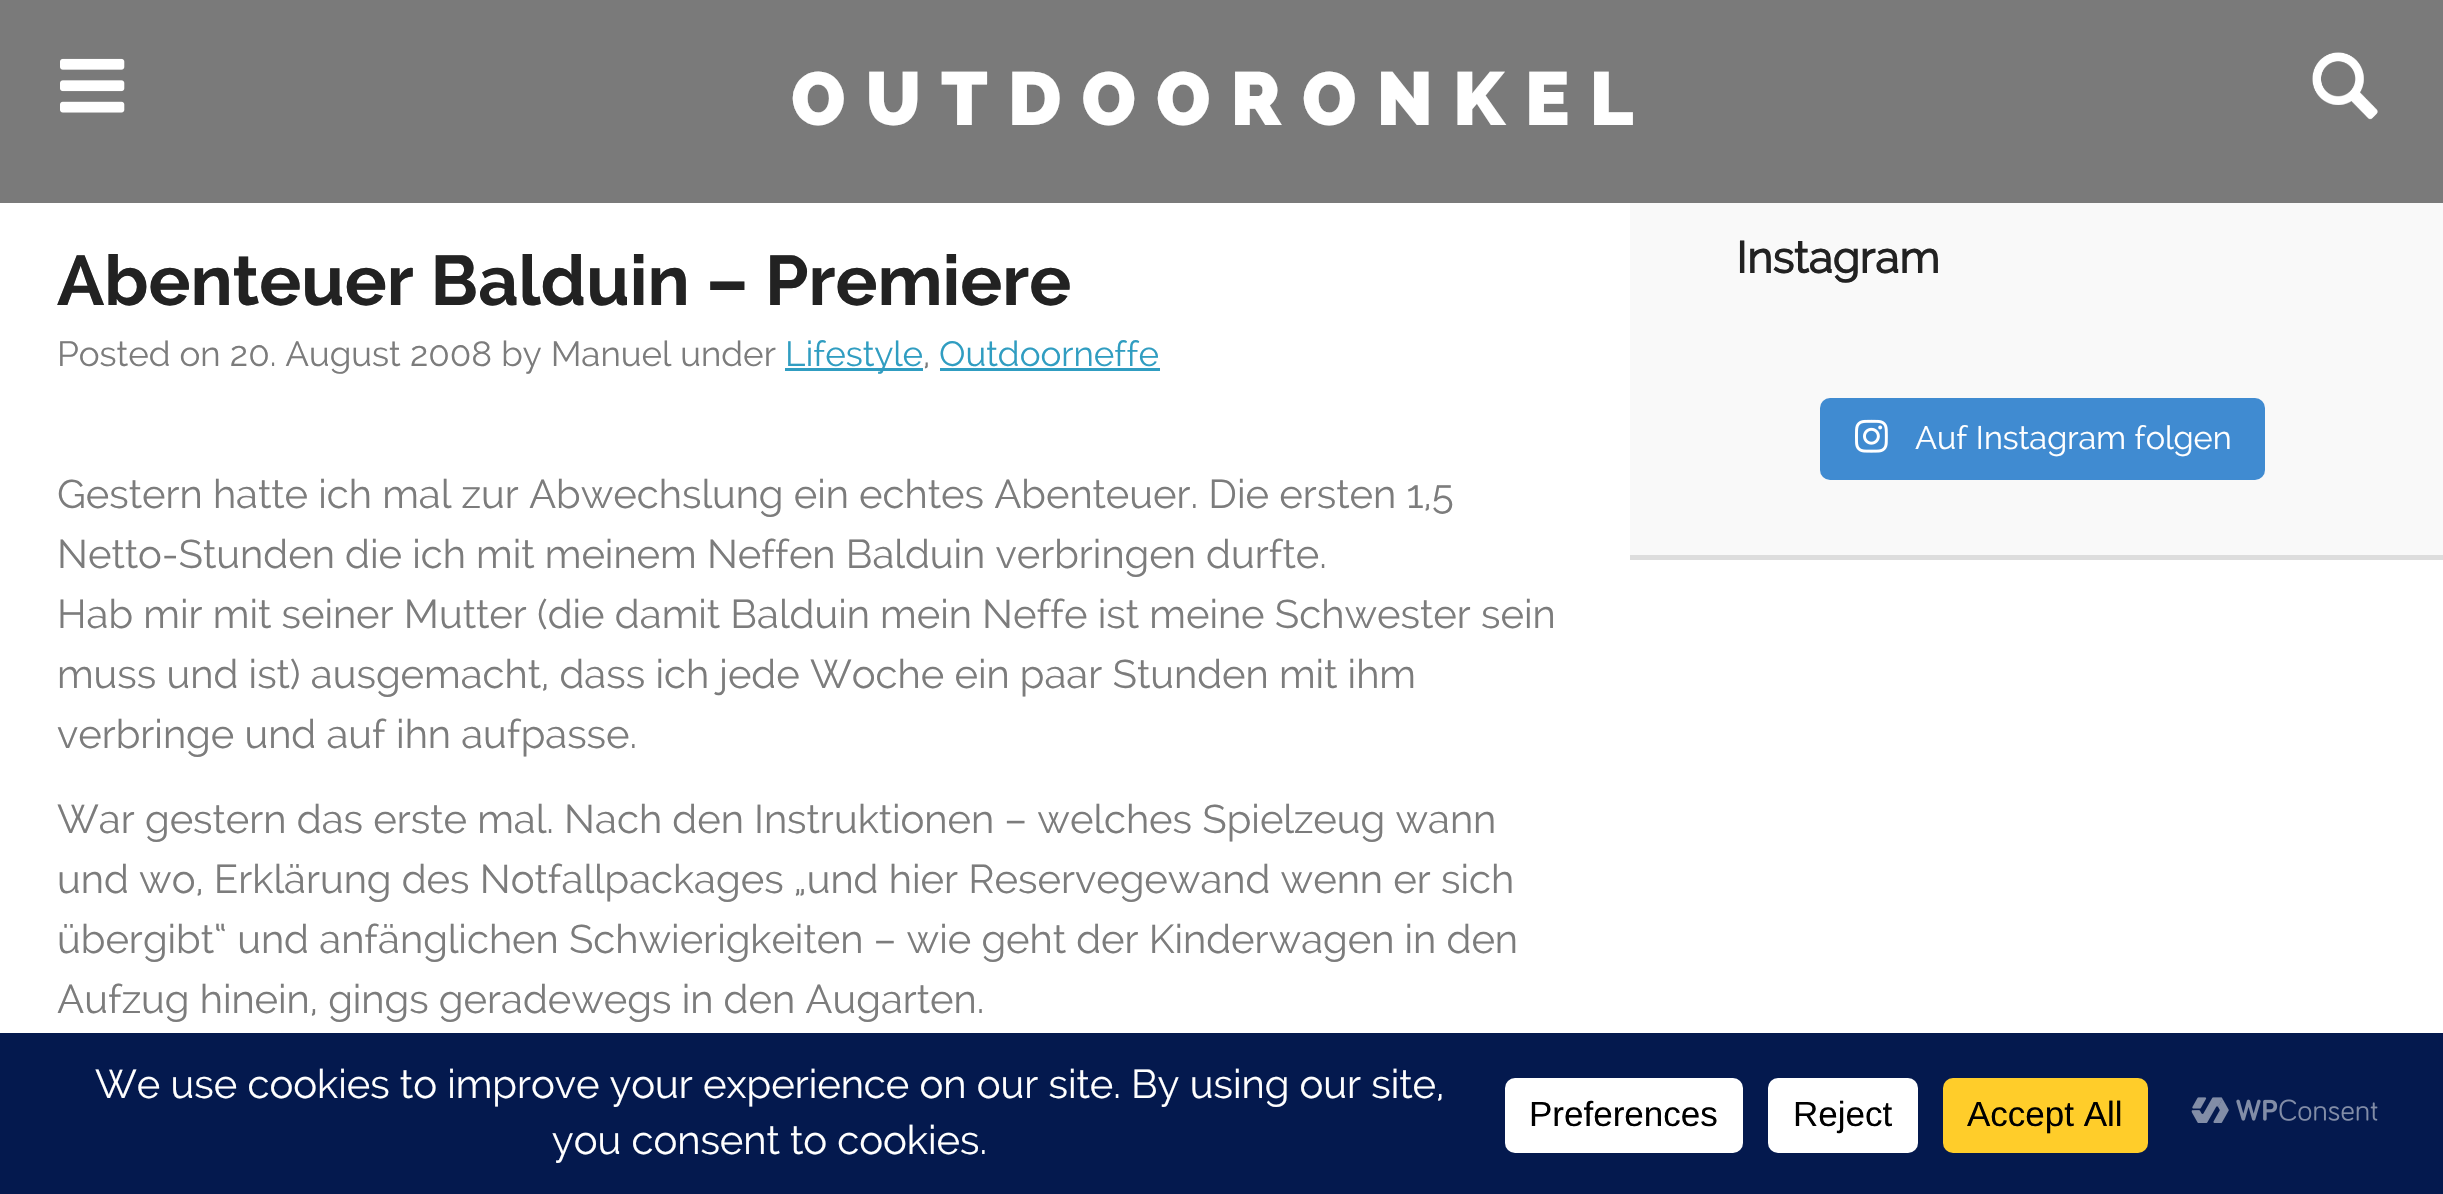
void draw(SkCanvas* canvas) {
	SkPaint fill;
	fill.setAntiAlias(true);
	auto makeFont = [&](const char* family, int weight, float size, bool italic = false) {
		SkFontStyle style(weight, SkFontStyle::kNormal_Width,
			italic ? SkFontStyle::kItalic_Slant : SkFontStyle::kUpright_Slant);
		SkFont result(fontMgr->matchFamilyStyle(family, style), size);
		result.setSubpixel(true);
		return result;
	};
	auto text = [&](const char* s, float x, float y, const SkFont& font) {
		canvas->drawString(s, x, y, font, fill);
	};
	auto spacedText = [&](const char* s, float x, float y, const SkFont& font, const SkPaint& ink, float letter, float word) {
		std::vector<SkGlyphID> glyphs(font.countText(s, strlen(s), SkTextEncoding::kUTF8));
		std::vector<float> xs(glyphs.size());
		font.textToGlyphs(s, strlen(s), SkTextEncoding::kUTF8, glyphs);
		font.getXPos(glyphs, xs, x);
		float extra = 0;
		for (size_t i = 0; i < glyphs.size(); i++) {
			xs[i] += extra;
			extra += letter + word * (glyphs[i] == font.unicharToGlyph(' '));
		}
		canvas->drawTextBlob(SkTextBlob::MakeFromPosHGlyphs(glyphs, xs, y, font), 0, 0, ink);
	};
	auto box = [&](float l, float t, float r, float b) {
		canvas->drawRect(SkRect::MakeLTRB(l, t, r, b), fill);
	};
	auto roundBox = [&](float l, float t, float r, float b, float radius) {
		canvas->drawRoundRect(SkRect::MakeLTRB(l, t, r, b), radius, radius, fill);
	};
	auto picture = [&](const char* path, float l, float t, float r, float b) {
		auto image = SkImages::DeferredFromEncodedData(SkData::MakeFromFileName(path));
		canvas->drawImageRect(image, SkRect::MakeLTRB(l, t, r, b), SkSamplingOptions());
	};
	canvas->clear(0xFFFFFFFF);
	fill.setColor(0xFF7A7A7A);
	box(0, 0, 2443, 203);
	picture("image0.png", 60, 58, 125, 113);
	picture("image1.png", 2312, 52, 2378, 120);
	fill.setColor(0xFF309DC1);
	box(785, 368, 923, 371);
	box(940, 368, 1160, 371);
	fill.setColor(0xFFF9F9F9);
	box(1630, 203, 2443, 555);
	fill.setColor(0xFFDDDDDD);
	box(1630, 555, 2443, 560);
	fill.setColor(0xFF408BD1);
	roundBox(1820, 398, 2265, 480, 10);
	picture("image2.png", 1855, 419, 1888, 453);
	fill.setColor(0xFF04194E);
	box(0, 1033, 2443, 1194);
	fill.setColor(0xFFFFFFFF);
	roundBox(1505, 1078, 1743, 1153, 10);
	roundBox(1768, 1078, 1918, 1153, 10);
	fill.setColor(0xFFFFCD2A);
	roundBox(1943, 1078, 2148, 1153, 10);
	picture("image3.png", 2191, 1097, 2378, 1123);
	auto font1 = makeFont("Raleway", 900, 75);
	fill.setColor(0xFFFFFFFF);
	spacedText("OUTDOORONKEL", 791, 125, font1, fill, 20, 0);
	auto font2 = makeFont("Raleway", 700, 70);
	fill.setColor(0xFF222222);
	text("Abenteuer Balduin – Premiere", 57, 305, font2);
	auto font3 = makeFont("Raleway", 400, 35);
	fill.setColor(0xFF7C7C7C);
	text("Posted on 20. August 2008 by Manuel under", 57, 366, font3);
	fill.setColor(0xFF309DC1);
	text("Lifestyle", 785, 366, font3);
	fill.setColor(0xFF7C7C7C);
	text(",", 923, 366, font3);
	fill.setColor(0xFF309DC1);
	text("Outdoorneffe", 939, 366, font3);
	auto font4 = makeFont("Raleway", 400, 40);
	fill.setColor(0xFF7C7C7C);
	text("Gestern hatte ich mal zur Abwechslung ein echtes Abenteuer. Die ersten 1,5", 57, 508, font4);
	text("Netto-Stunden die ich mit meinem Neffen Balduin verbringen durfte.", 57, 568, font4);
	text("Hab mir mit seiner Mutter (die damit Balduin mein Neffe ist meine Schwester sein", 57, 628, font4);
	text("muss und ist) ausgemacht, dass ich jede Woche ein paar Stunden mit ihm", 57, 688, font4);
	text("verbringe und auf ihn aufpasse.", 57, 748, font4);
	text("War gestern das erste mal. Nach den Instruktionen – welches Spielzeug wann", 57, 833, font4);
	text("und wo, Erklärung des Notfallpackages „und hier Reservegewand wenn er sich", 57, 893, font4);
	text("übergibt“ und anfänglichen Schwierigkeiten – wie geht der Kinderwagen in den", 57, 953, font4);
	text("Aufzug hinein, gings geradewegs in den Augarten.", 57, 1013, font4);
	auto font5 = makeFont("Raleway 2", 700, 44);
	fill.setColor(0xFF222222);
	text("Instagram", 1736, 273, font5);
	auto font6 = makeFont("Raleway", 400, 32.5f);
	fill.setColor(0xFFFFFFFF);
	text("Auf Instagram folgen", 1915, 449, font6);
	text("We use cookies to improve your experience on our site. By using our site,", 95, 1098, font4);
	text("you consent to cookies.", 552, 1154, font4);
	auto font7 = makeFont("Liberation Sans", 400, 35);
	fill.setColor(0xFF000000);
	text("Preferences", 1529, 1126, font7);
	text("Reject", 1793, 1126, font7);
	text("Accept All", 1967, 1126, font7);
}
